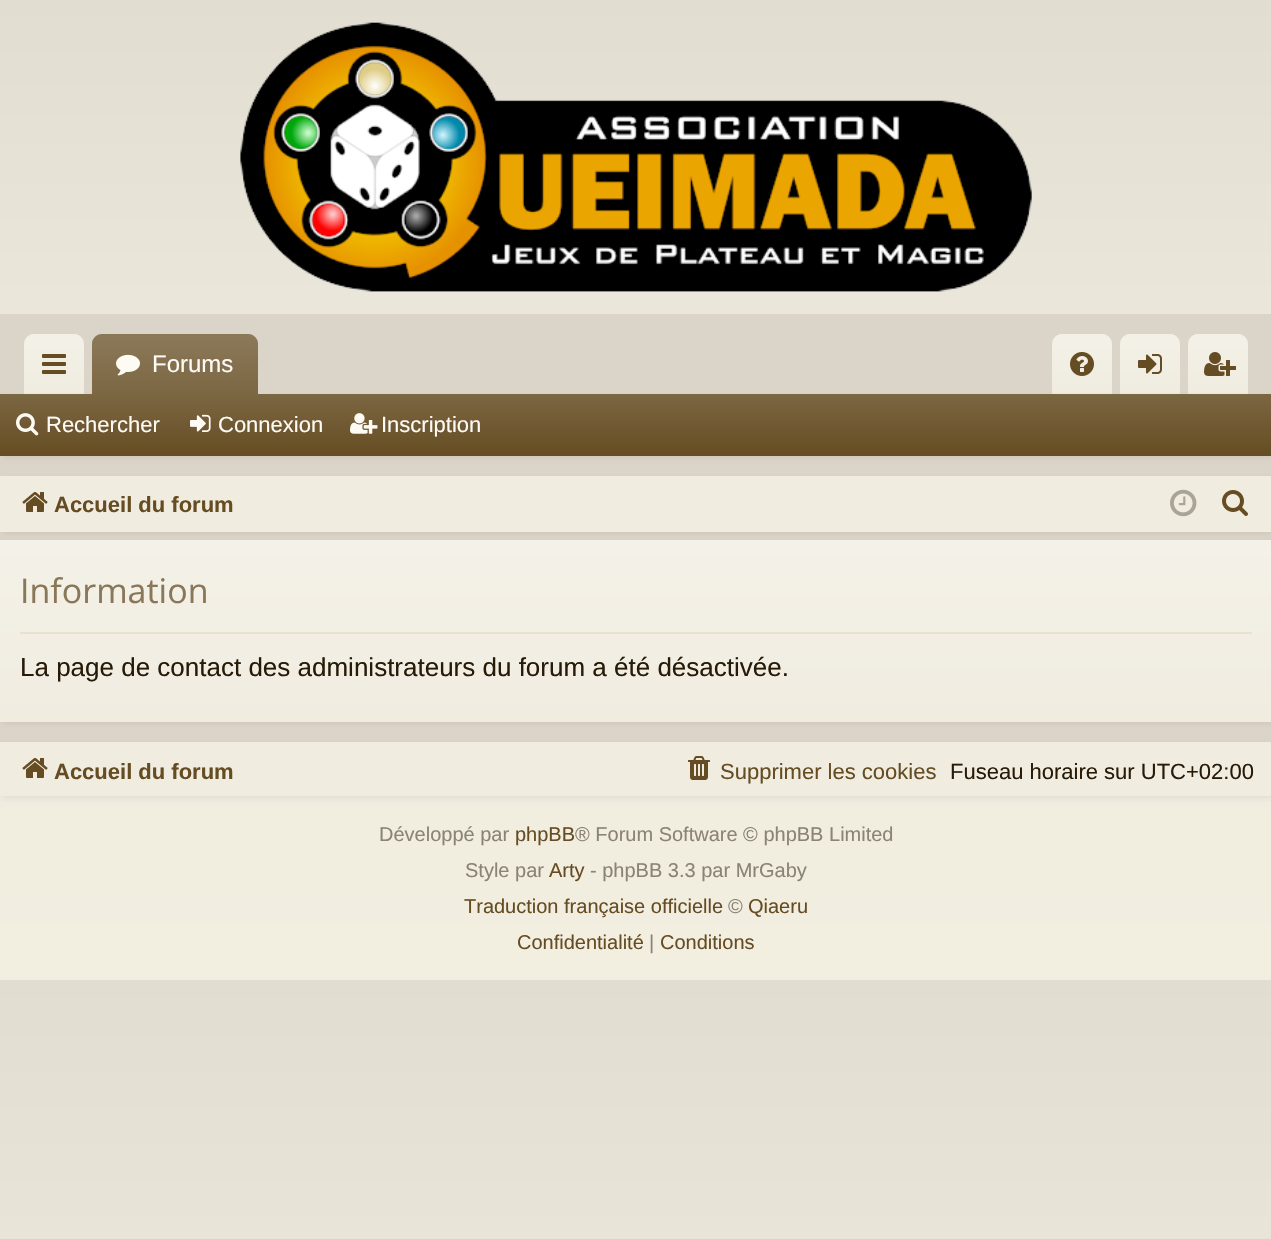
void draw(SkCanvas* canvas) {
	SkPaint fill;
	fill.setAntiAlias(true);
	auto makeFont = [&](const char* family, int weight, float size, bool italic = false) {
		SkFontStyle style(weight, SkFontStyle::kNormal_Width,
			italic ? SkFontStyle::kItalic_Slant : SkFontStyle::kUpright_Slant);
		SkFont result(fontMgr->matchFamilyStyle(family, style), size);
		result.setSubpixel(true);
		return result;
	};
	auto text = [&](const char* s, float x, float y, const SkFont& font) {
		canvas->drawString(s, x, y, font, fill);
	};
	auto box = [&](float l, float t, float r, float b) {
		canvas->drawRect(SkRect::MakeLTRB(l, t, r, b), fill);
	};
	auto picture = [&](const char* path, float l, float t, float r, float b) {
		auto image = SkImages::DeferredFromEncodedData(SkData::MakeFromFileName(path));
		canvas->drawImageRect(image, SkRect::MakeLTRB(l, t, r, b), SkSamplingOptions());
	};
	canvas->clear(0xFFFFFFFF);
	{
		const SkColor colors[] = {0xFFE2DDD1, 0xFFECE8DC, 0xFFF0EDE0};
		const float stops[] = {0, 0.41f, 1};
		const SkPoint ends[] = {{636, 980}, {636, 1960}};
		fill.setShader(SkGradientShader::MakeLinear(ends, colors, stops, 3, SkTileMode::kClamp));
		fill.setAlpha(255);
	}
	box(0, 980, 1271, 1239);
	{
		const SkColor colors[] = {0xFFE2DDD1, 0xFFEDE9DC, 0xFFF2EEE0};
		const float stops[] = {0, 0.41f, 1};
		const SkPoint ends[] = {{636, 0}, {636, 980}};
		fill.setShader(SkGradientShader::MakeLinear(ends, colors, stops, 3, SkTileMode::kClamp));
		fill.setAlpha(255);
	}
	box(0, 0, 1271, 980);
	picture("image0.png", 240, 22, 1032, 292);
	fill.setShader(nullptr);
	fill.setColor(0xFFDBD5C9);
	box(0, 314, 1271, 742);
	fill.setColor(0xFFF0ECE0);
	canvas->drawPath(SkPathBuilder().moveTo(34, 334).lineTo(74, 334).cubicTo(79.5f, 334, 84, 338.5f, 84, 344).lineTo(84, 394).lineTo(24, 394).lineTo(24, 344).cubicTo(24, 338.5f, 28.5f, 334, 34, 334).close().detach(), fill);
	{
		const SkColor colors[] = {0x40FFFFFF, 0x00FFFFFF};
		const float stops[] = {0, 1};
		const SkPoint ends[] = {{54, 334}, {54, 394}};
		fill.setShader(SkGradientShader::MakeLinear(ends, colors, stops, 2, SkTileMode::kClamp));
		fill.setAlpha(255);
	}
	canvas->drawPath(SkPathBuilder().moveTo(34, 334).lineTo(74, 334).cubicTo(79.5f, 334, 84, 338.5f, 84, 344).lineTo(84, 394).lineTo(24, 394).lineTo(24, 344).cubicTo(24, 338.5f, 28.5f, 334, 34, 334).close().detach(), fill);
	picture("image1.png", 42, 354, 66, 374);
	fill.setShader(nullptr);
	fill.setColor(0xFF654C22);
	canvas->drawPath(SkPathBuilder().moveTo(102, 334).lineTo(248, 334).cubicTo(253.5f, 334, 258, 338.5f, 258, 344).lineTo(258, 394).lineTo(92, 394).lineTo(92, 344).cubicTo(92, 338.5f, 96.5f, 334, 102, 334).close().detach(), fill);
	{
		const SkColor colors[] = {0x40FFFFFF, 0x26FFFFFF};
		const float stops[] = {0, 1};
		const SkPoint ends[] = {{175, 334}, {175, 394}};
		fill.setShader(SkGradientShader::MakeLinear(ends, colors, stops, 2, SkTileMode::kClamp));
		fill.setAlpha(255);
	}
	canvas->drawPath(SkPathBuilder().moveTo(102, 334).lineTo(248, 334).cubicTo(253.5f, 334, 258, 338.5f, 258, 344).lineTo(258, 394).lineTo(92, 394).lineTo(92, 344).cubicTo(92, 338.5f, 96.5f, 334, 102, 334).close().detach(), fill);
	picture("image2.png", 116, 354, 140, 376);
	fill.setShader(nullptr);
	fill.setColor(0xFFF0ECE0);
	canvas->drawPath(SkPathBuilder().moveTo(1062, 334).lineTo(1102, 334).cubicTo(1107.5f, 334, 1112, 338.5f, 1112, 344).lineTo(1112, 394).lineTo(1052, 394).lineTo(1052, 344).cubicTo(1052, 338.5f, 1056.5f, 334, 1062, 334).close().detach(), fill);
	{
		const SkColor colors[] = {0x40FFFFFF, 0x00FFFFFF};
		const float stops[] = {0, 1};
		const SkPoint ends[] = {{1082, 334}, {1082, 394}};
		fill.setShader(SkGradientShader::MakeLinear(ends, colors, stops, 2, SkTileMode::kClamp));
		fill.setAlpha(255);
	}
	canvas->drawPath(SkPathBuilder().moveTo(1062, 334).lineTo(1102, 334).cubicTo(1107.5f, 334, 1112, 338.5f, 1112, 344).lineTo(1112, 394).lineTo(1052, 394).lineTo(1052, 344).cubicTo(1052, 338.5f, 1056.5f, 334, 1062, 334).close().detach(), fill);
	fill.setShader(nullptr);
	fill.setColor(0xFFF0ECE0);
	canvas->drawPath(SkPathBuilder().moveTo(1130, 334).lineTo(1170, 334).cubicTo(1175.5f, 334, 1180, 338.5f, 1180, 344).lineTo(1180, 394).lineTo(1120, 394).lineTo(1120, 344).cubicTo(1120, 338.5f, 1124.5f, 334, 1130, 334).close().detach(), fill);
	{
		const SkColor colors[] = {0x40FFFFFF, 0x00FFFFFF};
		const float stops[] = {0, 1};
		const SkPoint ends[] = {{1150, 334}, {1150, 394}};
		fill.setShader(SkGradientShader::MakeLinear(ends, colors, stops, 2, SkTileMode::kClamp));
		fill.setAlpha(255);
	}
	canvas->drawPath(SkPathBuilder().moveTo(1130, 334).lineTo(1170, 334).cubicTo(1175.5f, 334, 1180, 338.5f, 1180, 344).lineTo(1180, 394).lineTo(1120, 394).lineTo(1120, 344).cubicTo(1120, 338.5f, 1124.5f, 334, 1130, 334).close().detach(), fill);
	fill.setShader(nullptr);
	fill.setColor(0xFFF0ECE0);
	canvas->drawPath(SkPathBuilder().moveTo(1198, 334).lineTo(1238, 334).cubicTo(1243.5f, 334, 1248, 338.5f, 1248, 344).lineTo(1248, 394).lineTo(1188, 394).lineTo(1188, 344).cubicTo(1188, 338.5f, 1192.5f, 334, 1198, 334).close().detach(), fill);
	{
		const SkColor colors[] = {0x40FFFFFF, 0x00FFFFFF};
		const float stops[] = {0, 1};
		const SkPoint ends[] = {{1218, 334}, {1218, 394}};
		fill.setShader(SkGradientShader::MakeLinear(ends, colors, stops, 2, SkTileMode::kClamp));
		fill.setAlpha(255);
	}
	canvas->drawPath(SkPathBuilder().moveTo(1198, 334).lineTo(1238, 334).cubicTo(1243.5f, 334, 1248, 338.5f, 1248, 344).lineTo(1248, 394).lineTo(1188, 394).lineTo(1188, 344).cubicTo(1188, 338.5f, 1192.5f, 334, 1198, 334).close().detach(), fill);
	fill.setShader(nullptr);
	fill.setColor(0x1A654C22);
	fill.setMaskFilter(SkMaskFilter::MakeBlur(kNormal_SkBlurStyle, 3));
	canvas->drawRect(SkRect::MakeLTRB(2, 396, 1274, 458), fill);
	fill.setMaskFilter(nullptr);
	{
		const SkColor colors[] = {0xFF7C6743, 0xFF654C22};
		const float stops[] = {0, 1};
		const SkPoint ends[] = {{636, 394}, {636, 456}};
		fill.setShader(SkGradientShader::MakeLinear(ends, colors, stops, 2, SkTileMode::kClamp));
		fill.setAlpha(255);
	}
	box(0, 394, 1271, 456);
	fill.setShader(nullptr);
	fill.setColor(0xFF654C22);
	canvas->drawPath(SkPathBuilder().moveTo(96, 392).lineTo(254, 392).cubicTo(256, 392, 258, 394, 258, 396).lineTo(92, 396).cubicTo(92, 394, 94, 392, 96, 392).close().detach(), fill);
	fill.setColor(0x26FFFFFF);
	canvas->drawPath(SkPathBuilder().moveTo(96, 392).lineTo(254, 392).cubicTo(256, 392, 258, 394, 258, 396).lineTo(92, 396).cubicTo(92, 394, 94, 392, 96, 392).close().detach(), fill);
	picture("image3.png", 1070, 352, 1094, 376);
	picture("image4.png", 1138, 354, 1162, 374);
	picture("image5.png", 1204, 352, 1236, 376);
	picture("image6.png", 16, 413, 39, 436);
	picture("image7.png", 190, 414, 211, 432);
	picture("image8.png", 350, 413, 378, 434);
	fill.setColor(0x1A654C22);
	fill.setMaskFilter(SkMaskFilter::MakeBlur(kNormal_SkBlurStyle, 3));
	canvas->drawRect(SkRect::MakeLTRB(2, 478, 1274, 534), fill);
	fill.setMaskFilter(nullptr);
	fill.setColor(0xFFF0ECE0);
	box(0, 476, 1271, 532);
	picture("image9.png", 22, 492, 48, 512);
	picture("image10.png", 1170, 489, 1197, 517);
	picture("image11.png", 1222, 490, 1248, 516);
	fill.setColor(0x1A654C22);
	fill.setMaskFilter(SkMaskFilter::MakeBlur(kNormal_SkBlurStyle, 3));
	canvas->drawRect(SkRect::MakeLTRB(2, 542, 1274, 724), fill);
	fill.setMaskFilter(nullptr);
	{
		const SkColor colors[] = {0xFFF4F1E8, 0xFFF0ECE0};
		const float stops[] = {0, 1};
		const SkPoint ends[] = {{636, 540}, {636, 722}};
		fill.setShader(SkGradientShader::MakeLinear(ends, colors, stops, 2, SkTileMode::kClamp));
		fill.setAlpha(255);
	}
	box(0, 540, 1271, 722);
	fill.setShader(nullptr);
	fill.setColor(0xFFE8E1CF);
	box(20, 632, 1252, 634);
	fill.setColor(0x1A654C22);
	fill.setMaskFilter(SkMaskFilter::MakeBlur(kNormal_SkBlurStyle, 3));
	canvas->drawRect(SkRect::MakeLTRB(2, 744, 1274, 798), fill);
	fill.setMaskFilter(nullptr);
	fill.setColor(0xFFF0ECE0);
	box(0, 742, 1271, 796);
	picture("image9.png", 22, 758, 48, 778);
	picture("image12.png", 688, 756, 710, 780);
	auto font1 = makeFont("Liberation Sans", 400, 24);
	fill.setColor(0xFFFEFBF5);
	text("Forums", 152, 372, font1);
	auto font2 = makeFont("Liberation Sans", 400, 22);
	text("Rechercher", 46, 432, font2);
	text("Connexion", 218, 432, font2);
	text("Inscription", 381, 432, font2);
	auto font3 = makeFont("Liberation Sans", 700, 22);
	fill.setColor(0xFF654C22);
	text("Accueil du forum", 54, 512, font3);
	auto font4 = makeFont("Open Sans", 400, 34);
	fill.setColor(0xFF897759);
	text("Information", 20, 603, font4);
	auto font5 = makeFont("Liberation Sans", 400, 26);
	fill.setColor(0xFF271B08);
	text("La page de contact des administrateurs du forum a été désactivée.", 20, 676, font5);
	fill.setColor(0xFF654C22);
	text("Accueil du forum", 54, 779, font3);
	text("Supprimer les cookies", 720, 779, font2);
	fill.setColor(0xFF271B08);
	text("Fuseau horaire sur UTC+02:00", 950, 779, font2);
	auto font6 = makeFont("Liberation Sans", 400, 20);
	fill.setColor(0xFF8B8374);
	text("Développé par", 379, 841, font6);
	fill.setColor(0xFF654C22);
	text("phpBB", 515, 841, font6);
	fill.setColor(0xFF8B8374);
	text("® Forum Software © phpBB Limited", 575, 841, font6);
	text("Style par", 465, 877, font6);
	fill.setColor(0xFF654C22);
	text("Arty", 549, 877, font6);
	fill.setColor(0xFF8B8374);
	text("- phpBB 3.3 par MrGaby", 590, 877, font6);
	fill.setColor(0xFF654C22);
	text("Traduction française officielle", 464, 913, font6);
	fill.setColor(0xFF8B8374);
	text("©", 728, 913, font6);
	fill.setColor(0xFF654C22);
	text("Qiaeru", 748, 913, font6);
	text("Confidentialité", 517, 949, font6);
	fill.setColor(0xFF8B8374);
	text("|", 649, 949, font6);
	fill.setColor(0xFF654C22);
	text("Conditions", 660, 949, font6);
}
